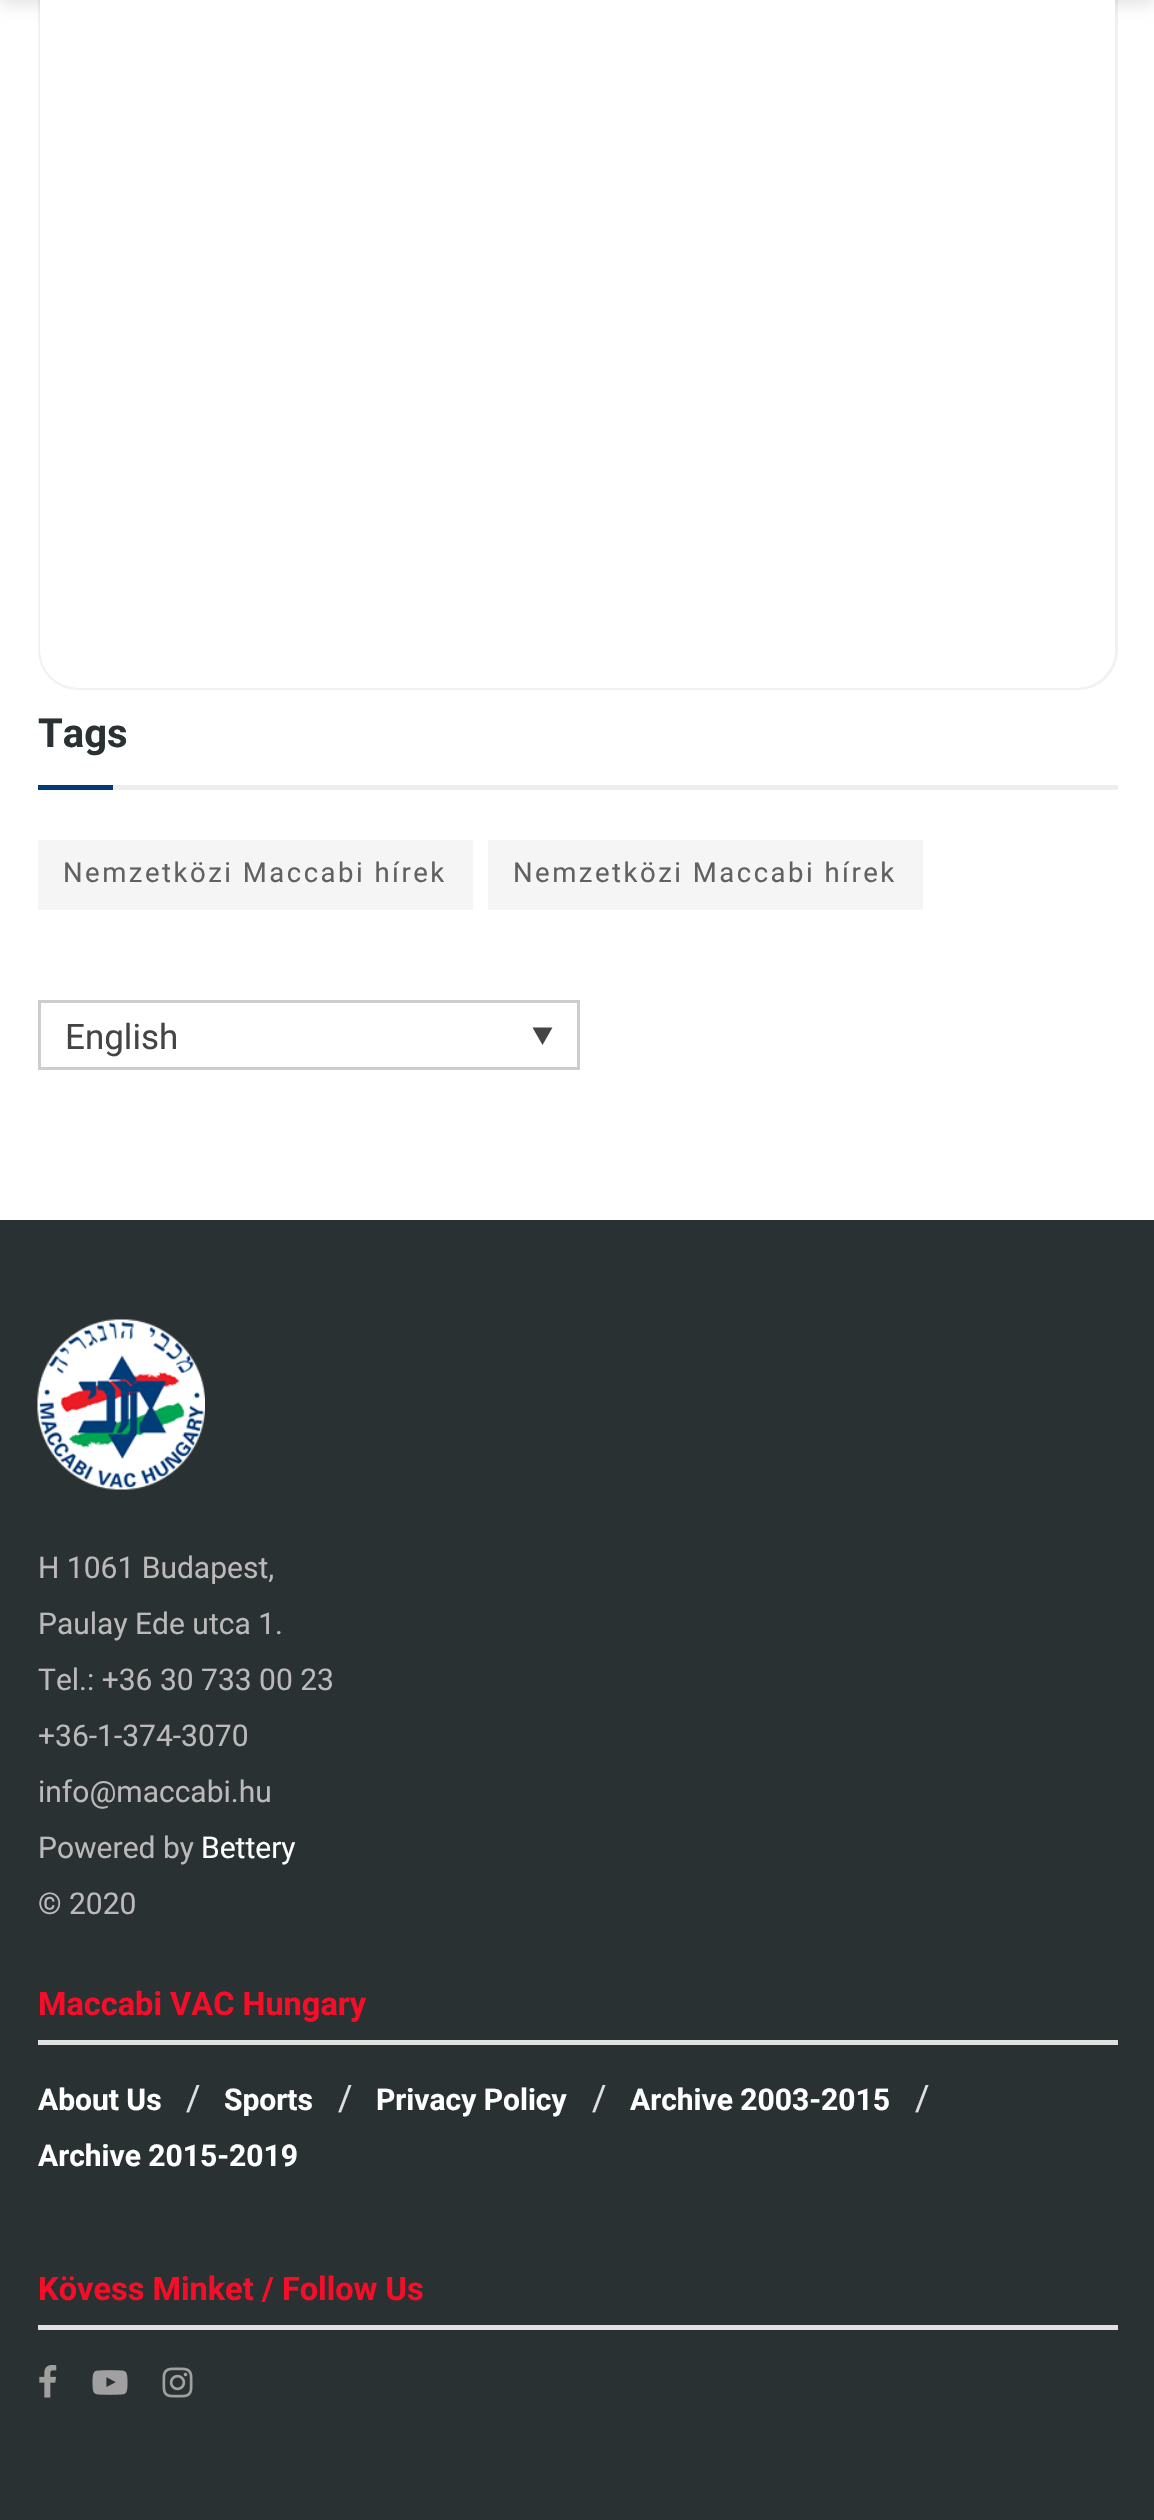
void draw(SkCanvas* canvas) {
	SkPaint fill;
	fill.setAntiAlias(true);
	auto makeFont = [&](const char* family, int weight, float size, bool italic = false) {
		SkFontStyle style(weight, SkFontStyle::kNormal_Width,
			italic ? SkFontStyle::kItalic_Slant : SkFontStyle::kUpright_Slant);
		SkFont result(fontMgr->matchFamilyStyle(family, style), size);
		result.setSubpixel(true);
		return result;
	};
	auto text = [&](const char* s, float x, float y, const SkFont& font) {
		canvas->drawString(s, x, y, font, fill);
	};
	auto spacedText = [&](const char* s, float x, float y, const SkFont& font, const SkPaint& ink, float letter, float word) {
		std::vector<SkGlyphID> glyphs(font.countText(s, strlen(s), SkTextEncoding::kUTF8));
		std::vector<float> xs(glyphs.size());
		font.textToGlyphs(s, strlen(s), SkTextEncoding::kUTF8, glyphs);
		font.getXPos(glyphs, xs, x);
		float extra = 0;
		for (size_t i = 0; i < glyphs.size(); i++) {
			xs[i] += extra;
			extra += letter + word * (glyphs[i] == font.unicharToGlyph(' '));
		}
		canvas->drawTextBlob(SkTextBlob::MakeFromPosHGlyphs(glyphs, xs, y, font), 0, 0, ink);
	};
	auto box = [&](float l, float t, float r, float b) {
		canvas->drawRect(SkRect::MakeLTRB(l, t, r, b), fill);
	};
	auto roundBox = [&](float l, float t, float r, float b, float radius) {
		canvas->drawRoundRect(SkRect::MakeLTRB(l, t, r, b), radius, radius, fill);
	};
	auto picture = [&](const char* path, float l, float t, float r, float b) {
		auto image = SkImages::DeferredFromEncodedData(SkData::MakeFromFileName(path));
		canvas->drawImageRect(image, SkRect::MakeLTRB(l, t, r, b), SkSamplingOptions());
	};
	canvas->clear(0xFFFFFFFF);
	fill.setStyle(SkPaint::kStroke_Style);
	fill.setStrokeWidth(3);
	fill.setColor(0xFFF1F1F1);
	canvas->drawRoundRect(SkRect::MakeLTRB(39.5f, -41.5f, 1116.5f, 688.5f), 38.5f, 38.5f, fill);
	fill.setStyle(SkPaint::kFill_Style);
	fill.setColor(0x1A000000);
	fill.setMaskFilter(SkMaskFilter::MakeBlur(kNormal_SkBlurStyle, 7.5f));
	canvas->drawRect(SkRect::MakeLTRB(0, -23, 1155, 5), fill);
	fill.setMaskFilter(nullptr);
	fill.setColor(0xFFFFFFFF);
	roundBox(40, -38, 1115, 688, 38);
	fill.setColor(0xFFEEEEEE);
	box(113, 785, 1118, 790);
	fill.setColor(0xFF013B75);
	box(38, 785, 113, 790);
	fill.setColor(0xFFF5F5F5);
	box(38, 840, 473, 910);
	box(488, 840, 923, 910);
	fill.setStyle(SkPaint::kStroke_Style);
	fill.setColor(0xFFCDCDCD);
	canvas->drawRect(SkRect::MakeLTRB(39.5f, 1001.5f, 578.5f, 1068.5f), fill);
	fill.setStyle(SkPaint::kFill_Style);
	fill.setColor(0xFF444444);
	canvas->drawPath(SkPathBuilder().moveTo(532.5f, 1027.5f).lineTo(552.5f, 1027.5f).lineTo(542.5f, 1045).close().detach(), fill);
	fill.setColor(0xFF293132);
	box(0, 1220, 1154, 2520);
	picture("image0.png", 37, 1319, 205, 1490);
	fill.setColor(0xFFE0E0E0);
	box(38, 2040, 1118, 2045);
	box(38, 2325, 1118, 2330);
	picture("image1.png", 39, 2365, 57, 2398);
	picture("image2.png", 92, 2370, 128, 2395);
	picture("image3.png", 162, 2367, 193, 2398);
	auto font1 = makeFont("Roboto", 700, 40);
	fill.setColor(0xFF293132);
	text("Tags", 38, 747, font1);
	auto font2 = makeFont("Roboto", 400, 27.5f);
	fill.setColor(0xFF616161);
	spacedText("Nemzetközi Maccabi hírek", 63, 882, font2, fill, 2.5f, 0);
	spacedText("Nemzetközi Maccabi hírek", 513, 882, font2, fill, 2.5f, 0);
	auto font3 = makeFont("Roboto", 400, 35);
	fill.setColor(0xFF444444);
	text("English", 65, 1049, font3);
	auto font4 = makeFont("Roboto", 400, 30);
	fill.setColor(0xFFBCB9BB);
	text("H 1061 Budapest,", 38, 1578, font4);
	text("Paulay Ede utca 1.", 38, 1634, font4);
	text("Tel.: +36 30 733 00 23", 38, 1690, font4);
	text("+36-1-374-3070", 38, 1746, font4);
	text("info@maccabi.hu", 38, 1802, font4);
	text("Powered by", 38, 1858, font4);
	fill.setColor(0xFFFFFFFF);
	text("Bettery", 201, 1858, font4);
	fill.setColor(0xFFBCB9BB);
	text("© 2020", 38, 1914, font4);
	auto font5 = makeFont("Roboto", 700, 32.5f);
	fill.setColor(0xFFF70D28);
	text("Maccabi VAC Hungary", 38, 2015, font5);
	auto font6 = makeFont("Roboto", 700, 30);
	fill.setColor(0xFFFFFFFF);
	text("About Us", 38, 2110, font6);
	fill.setColor(0xFFE0E0E0);
	text("/", 186, 2110, font3);
	fill.setColor(0xFFFFFFFF);
	text("Sports", 224, 2110, font6);
	fill.setColor(0xFFE0E0E0);
	text("/", 338, 2110, font3);
	fill.setColor(0xFFFFFFFF);
	text("Privacy Policy", 376, 2110, font6);
	fill.setColor(0xFFE0E0E0);
	text("/", 592, 2110, font3);
	fill.setColor(0xFFFFFFFF);
	text("Archive 2003-2015", 630, 2110, font6);
	fill.setColor(0xFFE0E0E0);
	text("/", 915, 2110, font3);
	fill.setColor(0xFFFFFFFF);
	text("Archive 2015-2019", 38, 2166, font6);
	fill.setColor(0xFFF70D28);
	text("Kövess Minket / Follow Us", 38, 2300, font5);
}
